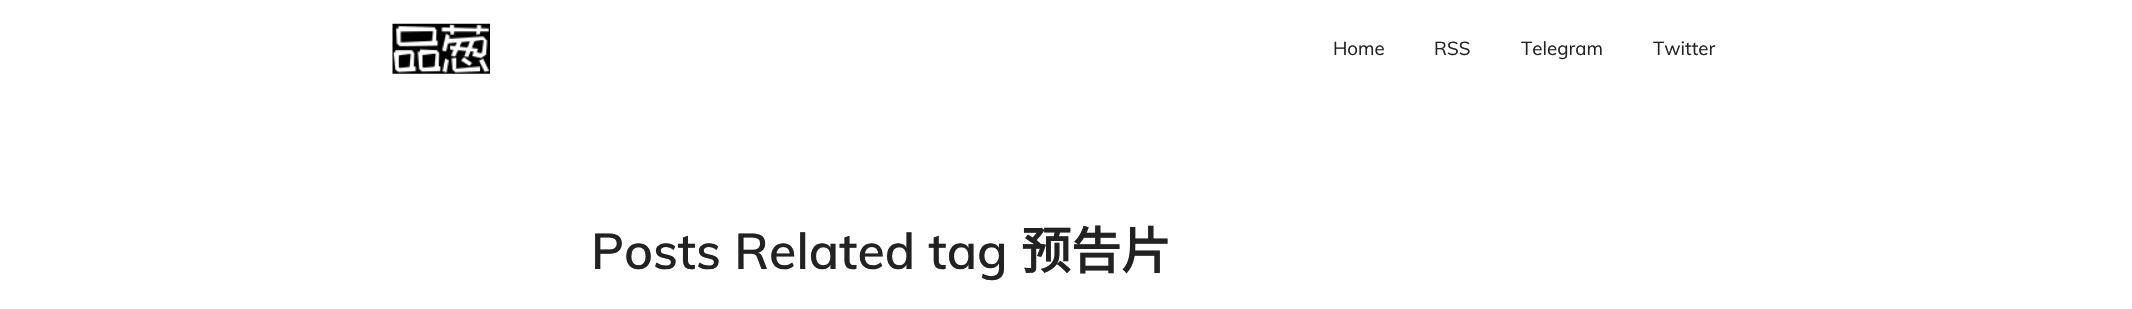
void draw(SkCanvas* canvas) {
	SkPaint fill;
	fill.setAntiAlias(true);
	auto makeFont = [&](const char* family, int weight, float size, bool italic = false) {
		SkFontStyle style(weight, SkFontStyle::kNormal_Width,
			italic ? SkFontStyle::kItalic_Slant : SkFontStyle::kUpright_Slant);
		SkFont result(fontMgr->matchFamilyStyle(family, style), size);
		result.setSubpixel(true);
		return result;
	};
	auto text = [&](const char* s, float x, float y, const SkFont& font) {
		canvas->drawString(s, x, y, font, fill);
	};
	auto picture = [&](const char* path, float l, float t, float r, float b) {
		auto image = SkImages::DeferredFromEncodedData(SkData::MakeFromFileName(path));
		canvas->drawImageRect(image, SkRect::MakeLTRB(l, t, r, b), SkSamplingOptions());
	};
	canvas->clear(0xFFFFFFFF);
	picture("image0.png", 392, 23, 490, 74);
	auto font1 = makeFont("Muli", 400, 18.75f);
	fill.setColor(0xFF222222);
	text("Home", 1333, 55, font1);
	text("RSS", 1434, 55, font1);
	text("Telegram", 1521, 55, font1);
	text("Twitter", 1653, 55, font1);
	auto font2 = makeFont("Muli", 600, 50);
	text("Posts Related tag", 591, 269, font2);
	auto font3 = makeFont("Noto Sans CJK SC", 700, 50);
	text("预告片", 1021, 269, font3);
}
